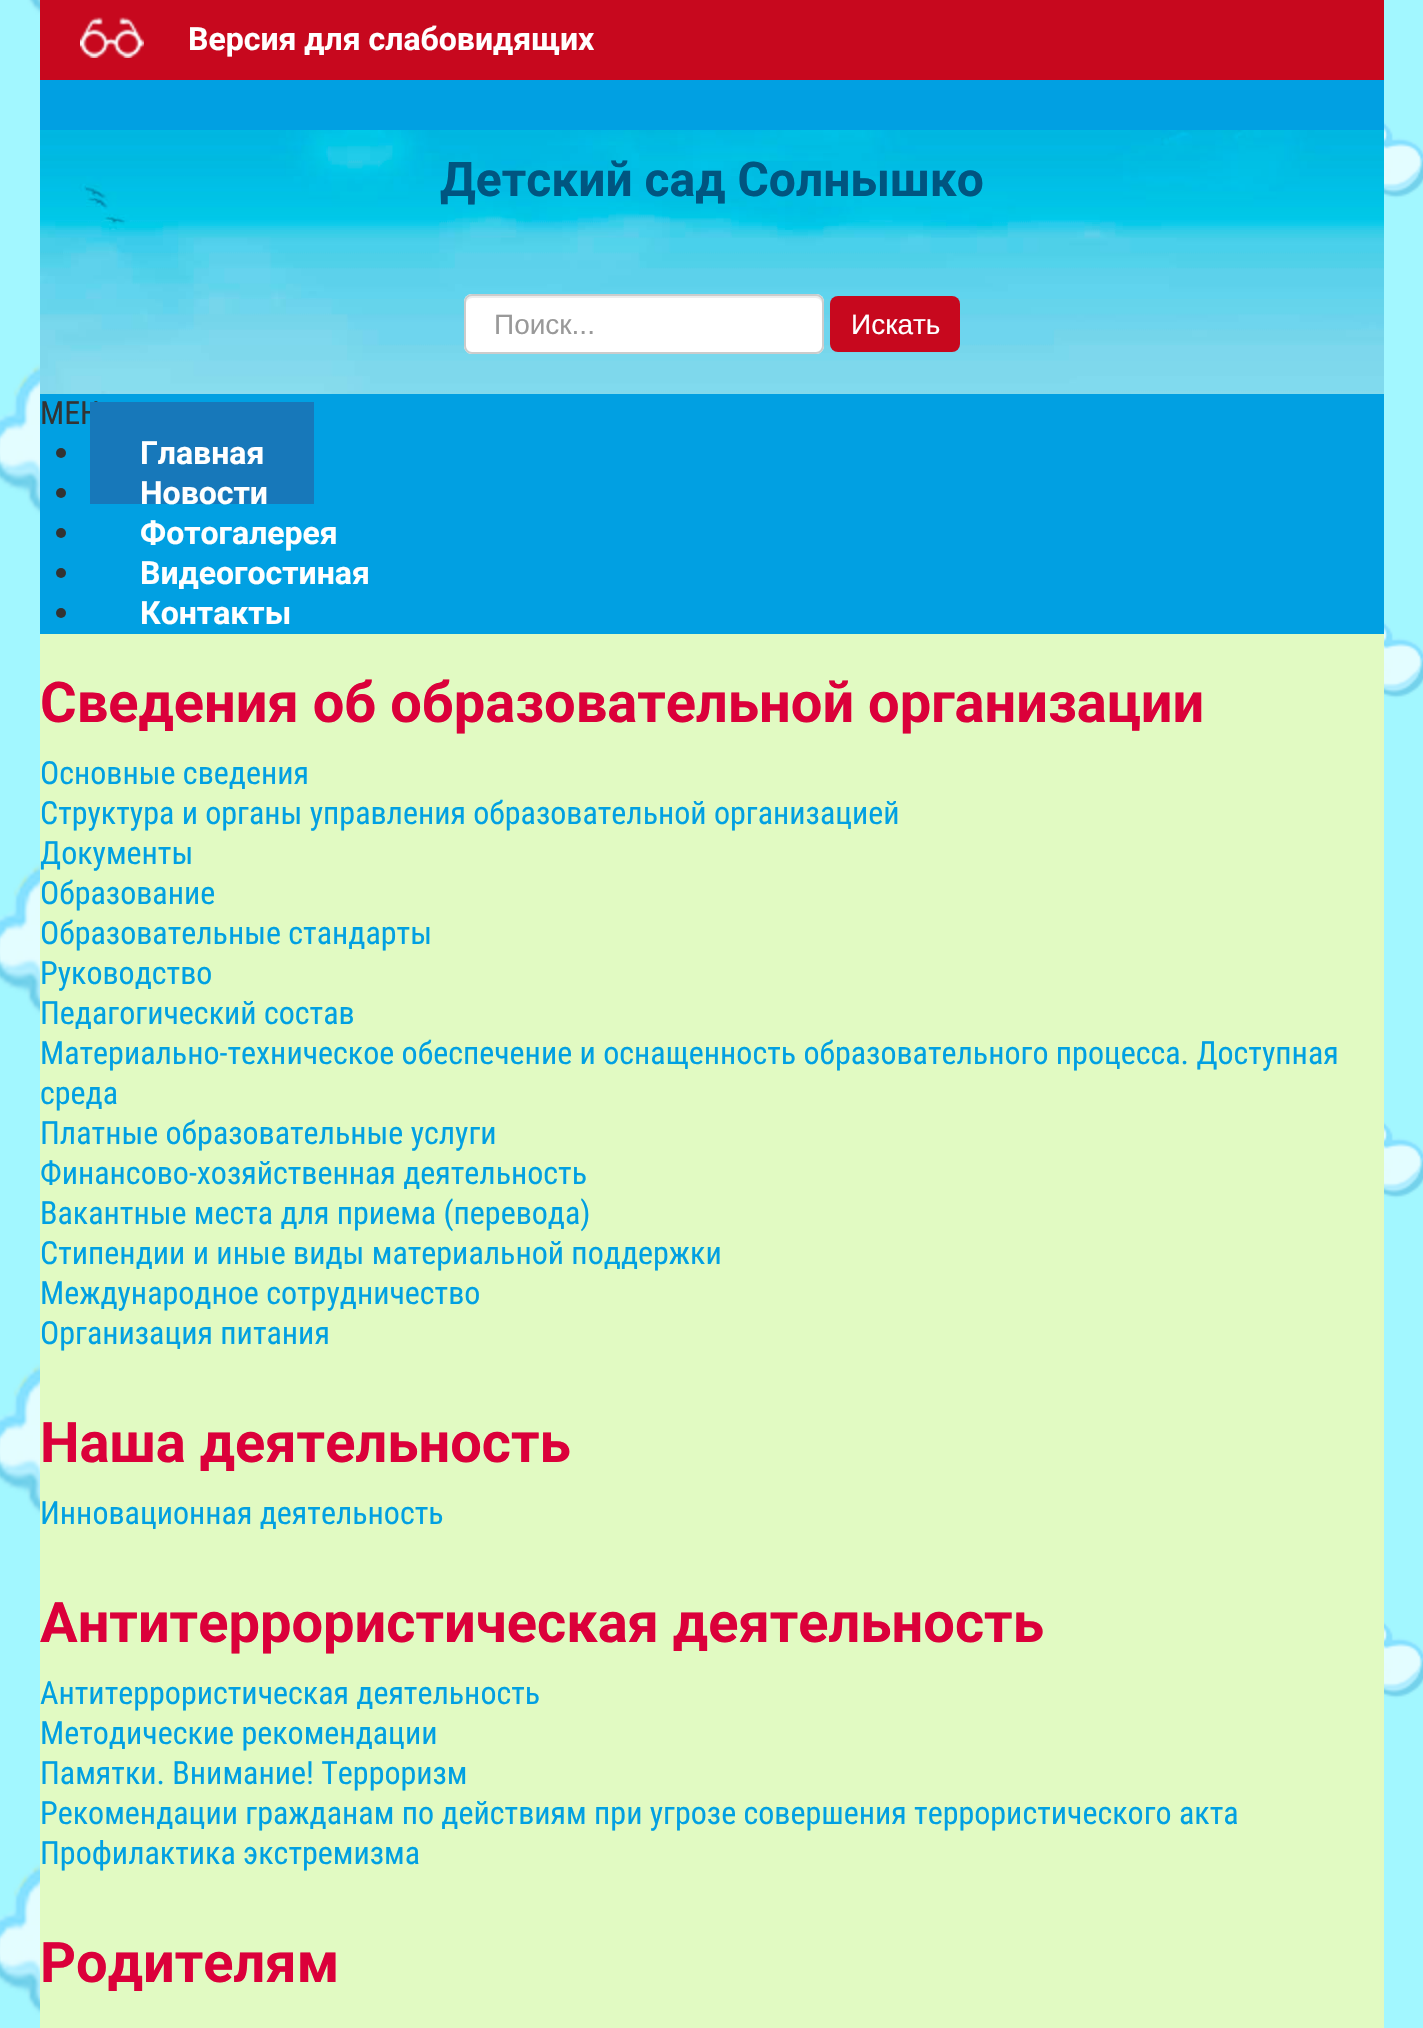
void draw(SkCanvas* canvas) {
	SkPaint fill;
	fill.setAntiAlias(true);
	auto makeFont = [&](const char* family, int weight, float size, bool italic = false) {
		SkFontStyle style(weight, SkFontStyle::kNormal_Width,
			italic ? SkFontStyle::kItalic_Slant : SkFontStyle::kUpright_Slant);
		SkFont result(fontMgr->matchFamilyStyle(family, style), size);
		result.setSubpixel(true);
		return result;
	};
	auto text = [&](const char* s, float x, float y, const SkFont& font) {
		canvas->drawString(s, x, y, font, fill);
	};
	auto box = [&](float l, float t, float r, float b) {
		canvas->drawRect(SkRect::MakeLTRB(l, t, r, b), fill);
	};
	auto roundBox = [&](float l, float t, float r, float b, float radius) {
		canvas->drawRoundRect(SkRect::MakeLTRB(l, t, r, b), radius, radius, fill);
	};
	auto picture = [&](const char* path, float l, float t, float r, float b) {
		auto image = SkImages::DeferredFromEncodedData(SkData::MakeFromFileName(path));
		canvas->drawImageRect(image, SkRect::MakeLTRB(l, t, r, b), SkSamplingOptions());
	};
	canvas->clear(0xFFFFFFFF);
	picture("image0.png", 0, 0, 1423, 2028);
	fill.setColor(0xFF01A0E2);
	box(40, 80, 1384, 130);
	fill.setColor(0xFFC7081E);
	box(40, 0, 1384, 80);
	picture("image1.png", 80, 17, 144, 58);
	picture("image2.png", 40, 130, 1384, 394);
	fill.setColor(0xFFFFFFFF);
	roundBox(464, 294, 824, 354, 8);
	fill.setColor(0xFFECECEC);
	canvas->drawPath(SkPathBuilder().moveTo(472, 298).lineTo(816, 298).cubicTo(819, 298, 822, 301, 822, 304).lineTo(822, 302).cubicTo(822, 299, 819, 296, 816, 296).lineTo(472, 296).cubicTo(469, 296, 466, 299, 466, 302).lineTo(466, 304).cubicTo(466, 301, 469, 298, 472, 298).close().detach(), fill);
	fill.setStyle(SkPaint::kStroke_Style);
	fill.setStrokeWidth(2);
	fill.setColor(0xFFCCCCCC);
	canvas->drawRoundRect(SkRect::MakeLTRB(465, 295, 823, 353), 7, 7, fill);
	fill.setStyle(SkPaint::kFill_Style);
	fill.setColor(0xFFC7081E);
	roundBox(830, 296, 960, 352, 8);
	fill.setColor(0xFFE1FAC2);
	box(40, 634, 1384, 2028);
	fill.setColor(0xFF01A0E2);
	box(40, 394, 1384, 634);
	fill.setColor(0xFF333333);
	canvas->drawCircle(61, 453, 5, fill);
	canvas->drawCircle(61, 493, 5, fill);
	canvas->drawCircle(61, 533, 5, fill);
	canvas->drawCircle(61, 573, 5, fill);
	canvas->drawCircle(61, 613, 5, fill);
	auto font1 = makeFont("Roboto", 700, 32);
	fill.setColor(0xFFFFFFFF);
	text("Версия для слабовидящих", 188, 50, font1);
	auto font2 = makeFont("Roboto", 700, 48);
	fill.setColor(0xFF005580);
	text("Детский сад Солнышко", 440, 196, font2);
	auto font3 = makeFont("Liberation Sans", 400, 28);
	fill.setColor(0xFF999999);
	text("Поиск...", 494, 334, font3);
	fill.setColor(0xFFFFFFFF);
	text("Искать", 851, 334, font3);
	auto font4 = makeFont("Roboto Condensed", 400, 32);
	fill.setColor(0xFF333333);
	text("МЕН", 40, 424, font4);
	fill.setColor(0xFF1778BA);
	box(90, 402, 314, 504);
	fill.setColor(0xFFFFFFFF);
	text("Главная", 140, 464, font1);
	text("Новости", 140, 504, font1);
	text("Фотогалерея", 140, 544, font1);
	text("Видеогостиная", 140, 584, font1);
	text("Контакты", 140, 624, font1);
	auto font5 = makeFont("Roboto", 700, 56);
	fill.setColor(0xFFDB003A);
	text("Сведения об образовательной организации", 40, 722, font5);
	fill.setColor(0xFF01A0E2);
	text("Основные сведения", 40, 784, font4);
	text("Структура и органы управления образовательной организацией", 40, 824, font4);
	text("Документы", 40, 864, font4);
	text("Образование", 40, 904, font4);
	text("Образовательные стандарты", 40, 944, font4);
	text("Руководство", 40, 984, font4);
	text("Педагогический состав", 40, 1024, font4);
	text("Материально-техническое обеспечение и оснащенность образовательного процесса. Доступная", 40, 1064, font4);
	text("среда", 40, 1104, font4);
	text("Платные образовательные услуги", 40, 1144, font4);
	text("Финансово-хозяйственная деятельность", 40, 1184, font4);
	text("Вакантные места для приема (перевода)", 40, 1224, font4);
	text("Стипендии и иные виды материальной поддержки", 40, 1264, font4);
	text("Международное сотрудничество", 40, 1304, font4);
	text("Организация питания", 40, 1344, font4);
	fill.setColor(0xFFDB003A);
	text("Наша деятельность", 40, 1462, font5);
	fill.setColor(0xFF01A0E2);
	text("Инновационная деятельность", 40, 1524, font4);
	fill.setColor(0xFFDB003A);
	text("Антитеррористическая деятельность", 40, 1642, font5);
	fill.setColor(0xFF01A0E2);
	text("Антитеррористическая деятельность", 40, 1704, font4);
	text("Методические рекомендации", 40, 1744, font4);
	text("Памятки. Внимание! Терроризм", 40, 1784, font4);
	text("Рекомендации гражданам по действиям при угрозе совершения террористического акта", 40, 1824, font4);
	text("Профилактика экстремизма", 40, 1864, font4);
	fill.setColor(0xFFDB003A);
	text("Родителям", 40, 1982, font5);
}
